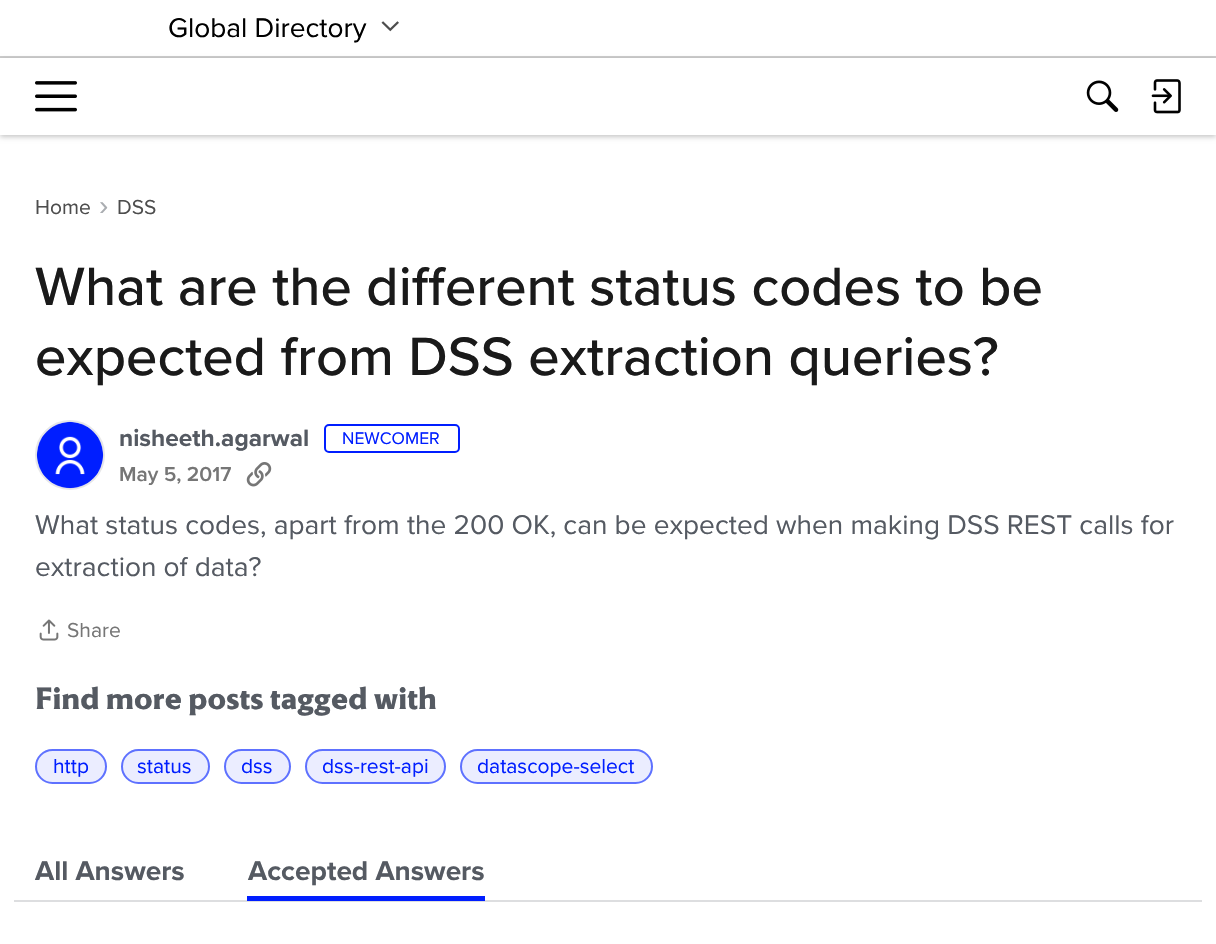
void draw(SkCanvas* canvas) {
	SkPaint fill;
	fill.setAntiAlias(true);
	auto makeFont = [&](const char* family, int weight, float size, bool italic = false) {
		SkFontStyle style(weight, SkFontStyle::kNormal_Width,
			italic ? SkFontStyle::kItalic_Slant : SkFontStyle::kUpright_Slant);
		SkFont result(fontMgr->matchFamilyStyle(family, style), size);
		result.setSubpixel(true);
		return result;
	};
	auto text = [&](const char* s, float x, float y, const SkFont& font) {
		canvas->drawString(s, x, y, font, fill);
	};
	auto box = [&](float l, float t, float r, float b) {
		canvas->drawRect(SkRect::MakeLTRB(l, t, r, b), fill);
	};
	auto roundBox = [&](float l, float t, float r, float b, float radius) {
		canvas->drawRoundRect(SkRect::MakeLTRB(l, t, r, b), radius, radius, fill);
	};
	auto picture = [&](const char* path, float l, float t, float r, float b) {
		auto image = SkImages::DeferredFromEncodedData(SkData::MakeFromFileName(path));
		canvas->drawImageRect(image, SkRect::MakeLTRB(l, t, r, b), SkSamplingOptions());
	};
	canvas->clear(0xFFFFFFFF);
	fill.setColor(0xFFCCCCCC);
	box(0, 56, 1216, 58);
	picture("image0.png", 381, 21, 399, 32);
	fill.setColor(0x38000000);
	fill.setMaskFilter(SkMaskFilter::MakeBlur(kNormal_SkBlurStyle, 2.5f));
	canvas->drawRect(SkRect::MakeLTRB(0, 60, 1216, 137), fill);
	fill.setMaskFilter(nullptr);
	fill.setColor(0xFFFFFFFF);
	box(0, 58, 1216, 135);
	picture("image1.png", 35, 81, 77, 112);
	picture("image2.png", 1086, 80, 1119, 112);
	picture("image3.png", 1151, 79, 1181, 114);
	fill.setStyle(SkPaint::kStroke_Style);
	fill.setStrokeWidth(2);
	fill.setColor(0xFFE6E6E8);
	canvas->drawCircle(70, 455, 34, fill);
	picture("image4.png", 36, 421, 104, 489);
	fill.setColor(0xFF001EFF);
	canvas->drawRoundRect(SkRect::MakeLTRB(325, 425, 459, 452), 4, 4, fill);
	picture("image5.png", 246, 462, 272, 487);
	picture("image6.png", 39, 619, 59, 641);
	fill.setStyle(SkPaint::kFill_Style);
	fill.setColor(0xFFEBEDFF);
	roundBox(35, 749, 107, 784, 17.5f);
	fill.setStyle(SkPaint::kStroke_Style);
	fill.setColor(0x99001EFF);
	canvas->drawRoundRect(SkRect::MakeLTRB(36, 750, 106, 783), 16.5f, 16.5f, fill);
	fill.setStyle(SkPaint::kFill_Style);
	fill.setColor(0xFFEBEDFF);
	roundBox(121, 749, 210, 784, 17.5f);
	fill.setStyle(SkPaint::kStroke_Style);
	fill.setColor(0x99001EFF);
	canvas->drawRoundRect(SkRect::MakeLTRB(122, 750, 209, 783), 16.5f, 16.5f, fill);
	fill.setStyle(SkPaint::kFill_Style);
	fill.setColor(0xFFEBEDFF);
	roundBox(224, 749, 291, 784, 17.5f);
	fill.setStyle(SkPaint::kStroke_Style);
	fill.setColor(0x99001EFF);
	canvas->drawRoundRect(SkRect::MakeLTRB(225, 750, 290, 783), 16.5f, 16.5f, fill);
	fill.setStyle(SkPaint::kFill_Style);
	fill.setColor(0xFFEBEDFF);
	roundBox(305, 749, 446, 784, 17.5f);
	fill.setStyle(SkPaint::kStroke_Style);
	fill.setColor(0x99001EFF);
	canvas->drawRoundRect(SkRect::MakeLTRB(306, 750, 445, 783), 16.5f, 16.5f, fill);
	fill.setStyle(SkPaint::kFill_Style);
	fill.setColor(0xFFEBEDFF);
	roundBox(460, 749, 653, 784, 17.5f);
	fill.setStyle(SkPaint::kStroke_Style);
	fill.setColor(0x99001EFF);
	canvas->drawRoundRect(SkRect::MakeLTRB(461, 750, 652, 783), 16.5f, 16.5f, fill);
	fill.setStyle(SkPaint::kFill_Style);
	fill.setColor(0xFFDDDEE0);
	box(14, 900, 1202, 902);
	fill.setColor(0xFF001EFF);
	box(247, 896, 485, 901);
	auto font1 = makeFont("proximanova", 400, 28);
	fill.setColor(0xFF000000);
	text("Global Directory", 168, 37, font1);
	auto font2 = makeFont("proximanova", 400, 21);
	fill.setColor(0xFF4D4D4D);
	text("Home", 35, 214, font2);
	auto font3 = makeFont("Liberation Sans", 400, 28);
	fill.setColor(0xFFAAADB1);
	text("›", 99, 215, font3);
	fill.setColor(0xFF4D4D4D);
	text("DSS", 117, 214, font2);
	auto font4 = makeFont("Proxima Nova", 500, 56);
	fill.setColor(0xFF1A1A1A);
	text("What are the different status codes to be", 35, 305, font4);
	text("expected from DSS extraction queries?", 35, 375, font4);
	auto font5 = makeFont("proximanova", 700, 24.5f);
	fill.setColor(0xFF555A62);
	text("nisheeth.agarwal", 119, 446, font5);
	auto font6 = makeFont("proximanova", 400, 17.5f);
	fill.setColor(0xFF001EFF);
	text("NEWCOMER", 342, 444, font6);
	auto font7 = makeFont("Proxima Nova", 600, 21);
	fill.setColor(0xFF767676);
	text("May 5, 2017", 119, 481, font7);
	fill.setColor(0xFF555A62);
	text("What status codes, apart from the 200 OK, can be expected when making DSS REST calls for", 35, 534, font1);
	text("extraction of data?", 35, 576, font1);
	fill.setColor(0xFF767676);
	text("Share", 67, 637, font2);
	auto font8 = makeFont("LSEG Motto", 700, 31.5f);
	fill.setColor(0xFF555A62);
	text("Find more posts tagged with", 35, 709, font8);
	fill.setColor(0xFF001EFF);
	text("http", 53, 773, font2);
	text("status", 137, 773, font2);
	text("dss", 241, 773, font2);
	text("dss-rest-api", 322, 773, font2);
	text("datascope-select", 477, 773, font2);
	auto font9 = makeFont("proximanova", 700, 28);
	fill.setColor(0xFF555A62);
	text("All Answers", 35, 880, font9);
	text("Accepted Answers", 248, 880, font9);
}
